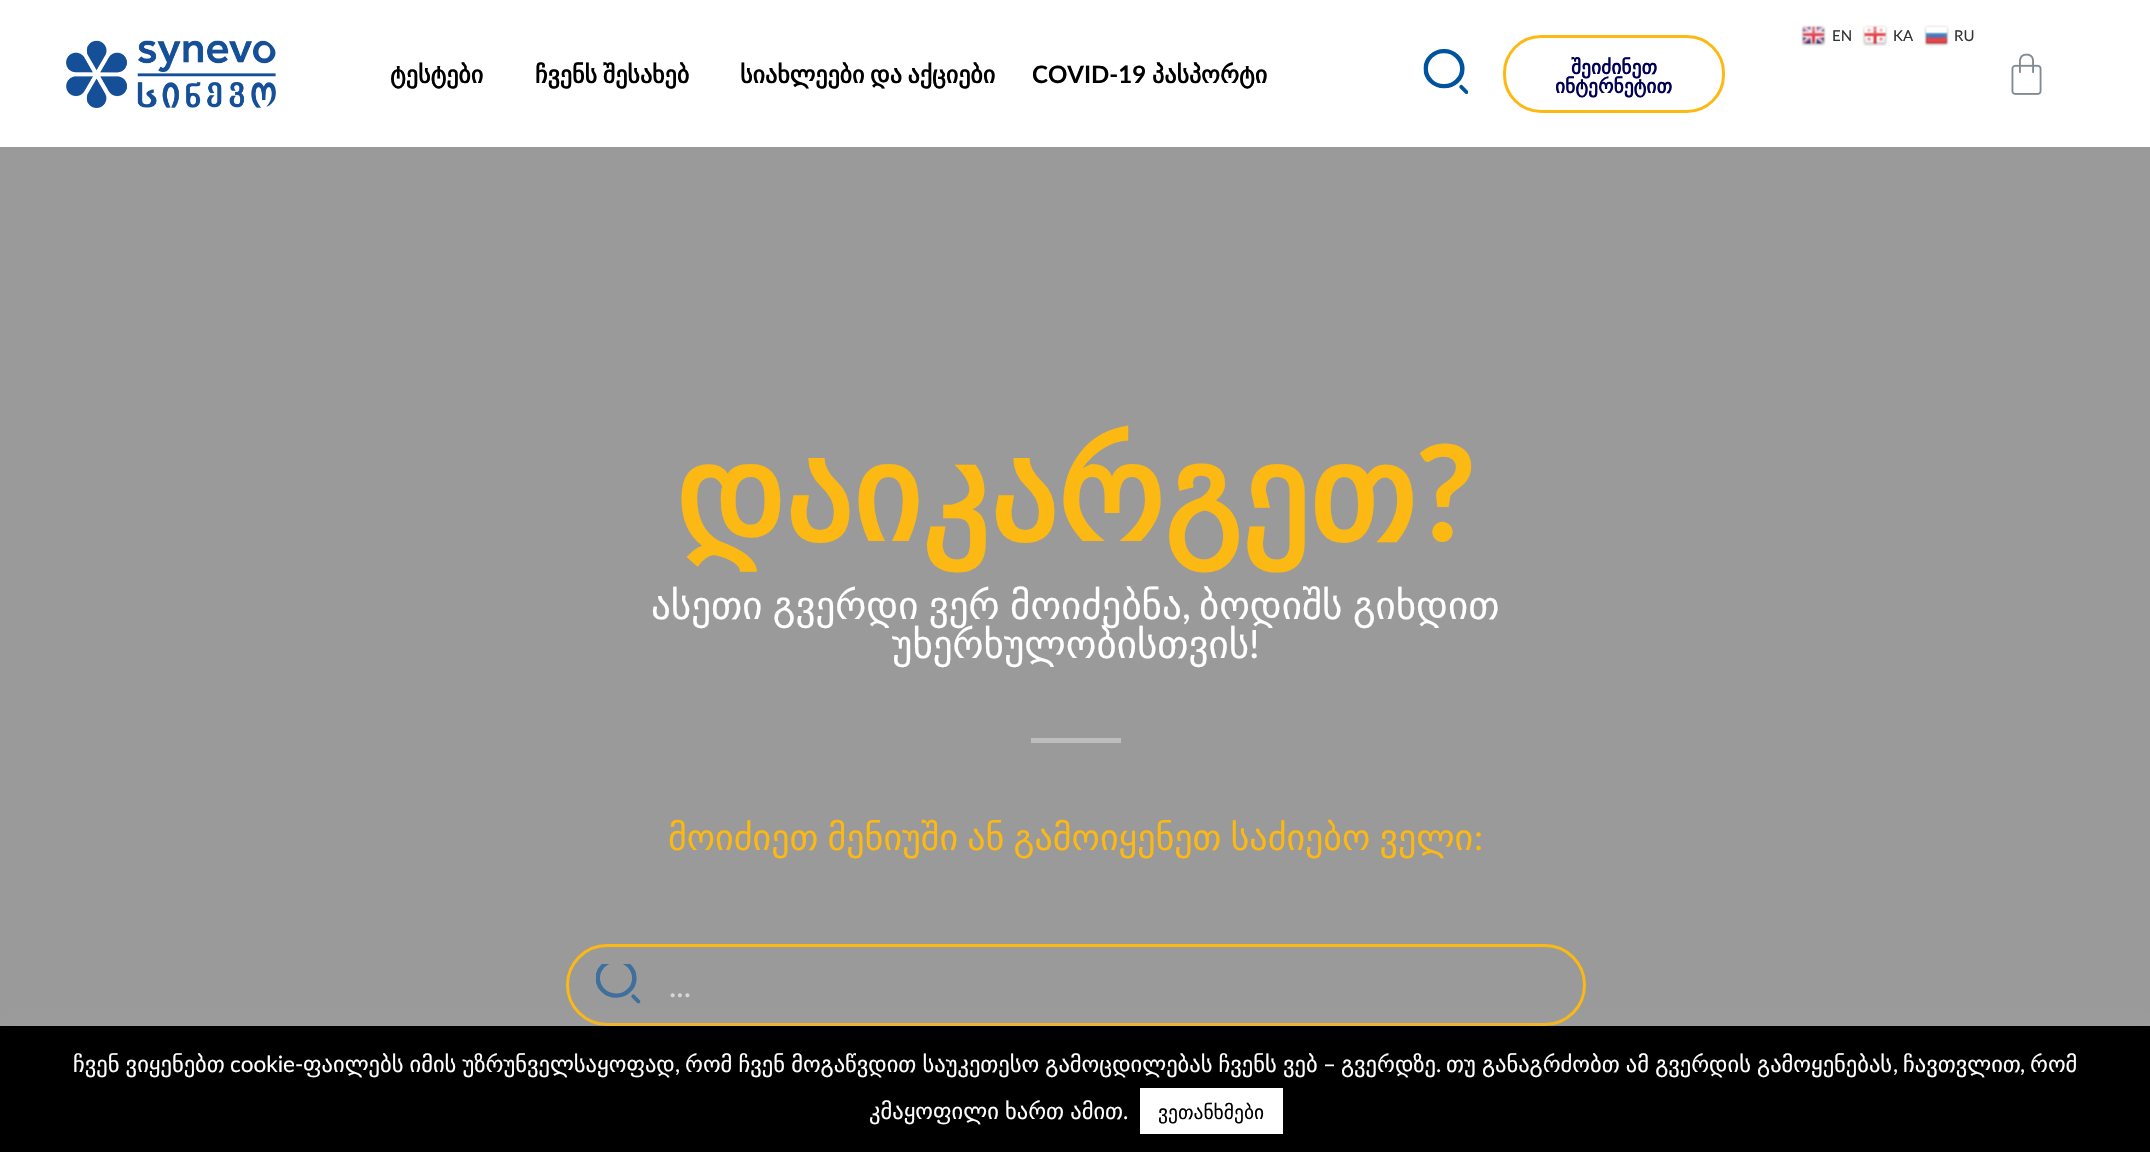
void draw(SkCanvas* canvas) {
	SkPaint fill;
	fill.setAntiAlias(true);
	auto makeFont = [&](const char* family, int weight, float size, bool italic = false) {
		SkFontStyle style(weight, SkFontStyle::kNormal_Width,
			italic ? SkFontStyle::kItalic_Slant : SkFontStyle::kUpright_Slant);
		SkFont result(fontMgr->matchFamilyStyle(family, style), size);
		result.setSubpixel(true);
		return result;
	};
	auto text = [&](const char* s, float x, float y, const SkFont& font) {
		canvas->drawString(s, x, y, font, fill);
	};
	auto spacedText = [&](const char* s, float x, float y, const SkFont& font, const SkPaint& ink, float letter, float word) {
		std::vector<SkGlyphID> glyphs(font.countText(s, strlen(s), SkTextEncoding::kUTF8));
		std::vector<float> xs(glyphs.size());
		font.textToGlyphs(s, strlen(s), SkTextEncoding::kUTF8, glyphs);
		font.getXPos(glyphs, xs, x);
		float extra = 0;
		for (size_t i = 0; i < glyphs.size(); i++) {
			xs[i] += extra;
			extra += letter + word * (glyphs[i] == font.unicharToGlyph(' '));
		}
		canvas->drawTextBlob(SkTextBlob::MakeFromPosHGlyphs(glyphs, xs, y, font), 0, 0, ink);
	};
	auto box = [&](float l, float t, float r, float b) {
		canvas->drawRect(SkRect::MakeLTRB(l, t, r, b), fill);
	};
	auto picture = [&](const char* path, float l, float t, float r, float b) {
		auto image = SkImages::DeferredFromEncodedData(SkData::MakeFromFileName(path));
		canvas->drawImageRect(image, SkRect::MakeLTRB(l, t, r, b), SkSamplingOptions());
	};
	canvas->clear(0xFFFFFFFF);
	picture("image0.png", 1801, 25, 1826, 46);
	picture("image1.png", 1862, 25, 1888, 46);
	picture("image2.png", 1924, 25, 1949, 46);
	picture("image3.png", 66, 40, 276, 108);
	picture("image4.png", 1423, 49, 1468, 94);
	fill.setStyle(SkPaint::kStroke_Style);
	fill.setStrokeWidth(3);
	fill.setColor(0xFFFDB913);
	canvas->drawRoundRect(SkRect::MakeLTRB(1504.5f, 36.5f, 1723.5f, 111.5f), 36.5f, 36.5f, fill);
	picture("image5.png", 2011, 53, 2042, 95);
	fill.setStyle(SkPaint::kFill_Style);
	fill.setColor(0xFF9A9A9A);
	box(0, 147, 2150, 1026);
	fill.setColor(0xFFBDBDBD);
	box(1031, 738, 1121, 743);
	fill.setStyle(SkPaint::kStroke_Style);
	fill.setColor(0xFFFCB813);
	canvas->drawRoundRect(SkRect::MakeLTRB(567.5f, 945.5f, 1584.5f, 1024.5f), 39.5f, 39.5f, fill);
	picture("image6.png", 596, 964, 641, 1004);
	fill.setStyle(SkPaint::kFill_Style);
	fill.setColor(0x4DACABAB);
	fill.setMaskFilter(SkMaskFilter::MakeBlur(kNormal_SkBlurStyle, 7.5f));
	canvas->drawRect(SkRect::MakeLTRB(0, 1025, 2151, 1151), fill);
	fill.setMaskFilter(nullptr);
	fill.setColor(0xFF000000);
	box(0, 1026, 2150, 1152);
	fill.setColor(0xFFFFFFFF);
	box(1140, 1088, 1283, 1134);
	auto font1 = makeFont("Lato", 400, 15);
	fill.setColor(0xFF333333);
	text("EN", 1832, 41, font1);
	text("KA", 1893, 41, font1);
	text("RU", 1954, 41, font1);
	auto font2 = makeFont("DejaVu Sans", 700, 24);
	fill.setColor(0xFF000000);
	text("ტესტები", 390, 83, font2);
	spacedText("ჩვენს შესახებ", 535, 83, font2, fill, 0, -2);
	spacedText("სიახლეები და აქციები", 740, 83, font2, fill, 0, -2);
	auto font3 = makeFont("Lato", 700, 24);
	text("COVID-19", 1032, 83, font3);
	text("პასპორტი", 1152, 83, font2);
	auto font4 = makeFont("DejaVu Sans", 700, 19.5f);
	fill.setColor(0xFF000055);
	text("შეიძინეთ", 1571, 74, font4);
	text("ინტერნეტით", 1555, 93, font4);
	auto font5 = makeFont("DejaVu Sans", 700, 133.5f);
	fill.setColor(0xFFFCB813);
	text("დაიკარგეთ", 675, 541, font5);
	auto font6 = makeFont("Lato", 700, 133.5f);
	text("?", 1415, 541, font6);
	auto font7 = makeFont("DejaVu Sans", 400, 39);
	fill.setColor(0xFFFFFFFF);
	spacedText("ასეთი გვერდი ვერ მოიძებნა", 651, 619, font7, fill, 0, -2);
	auto font8 = makeFont("Lato", 400, 39);
	text(",", 1182, 619, font8);
	spacedText("ბოდიშს გიხდით", 1199, 619, font7, fill, 0, -2);
	text("უხერხულობისთვის", 892, 658, font7);
	text("!", 1249, 658, font8);
	auto font9 = makeFont("DejaVu Sans", 400, 36);
	fill.setColor(0xFFFCB813);
	spacedText("მოიძიეთ მენიუში ან გამოიყენეთ საძიებო ველი", 668, 850, font9, fill, 0, -2.25f);
	auto font10 = makeFont("Lato", 400, 36);
	text(":", 1474, 850, font10);
	auto font11 = makeFont("Lato", 400, 31);
	fill.setColor(0xFFD7D7D7);
	text("...", 669, 997, font11);
	auto font12 = makeFont("DejaVu Sans", 400, 22.5f);
	fill.setColor(0xFFFFFFFF);
	spacedText("ჩვენ ვიყენებთ", 73, 1072, font12, fill, 0, -1);
	auto font13 = makeFont("Lato", 400, 22.5f);
	text("cookie-", 230, 1072, font13);
	spacedText("ფაილებს იმის უზრუნველსაყოფად", 303, 1072, font12, fill, 0, -1);
	spacedText("რომ ჩვენ მოგაწვდით საუკეთესო გამოცდილებას ჩვენს ვებ", 685, 1072, font12, fill, 0, -1);
	text("–", 1323, 1072, font13);
	text("გვერდზე", 1341, 1072, font12);
	spacedText("თუ განაგრძობთ ამ გვერდის გამოყენებას", 1446, 1072, font12, fill, 0, -1);
	text("ჩავთვლით", 1903, 1072, font12);
	text("რომ", 2030, 1072, font12);
	text(",", 675, 1072, font13);
	text(".", 1436, 1072, font13);
	text(",", 1893, 1072, font13);
	text(",", 2020, 1072, font13);
	spacedText("კმაყოფილი ხართ ამით", 869, 1119, font12, fill, 0, -1);
	text(".", 1123, 1119, font13);
	auto font14 = makeFont("DejaVu Sans", 400, 19.5f);
	fill.setColor(0xFF000000);
	text("ვეთანხმები", 1158, 1119, font14);
}
